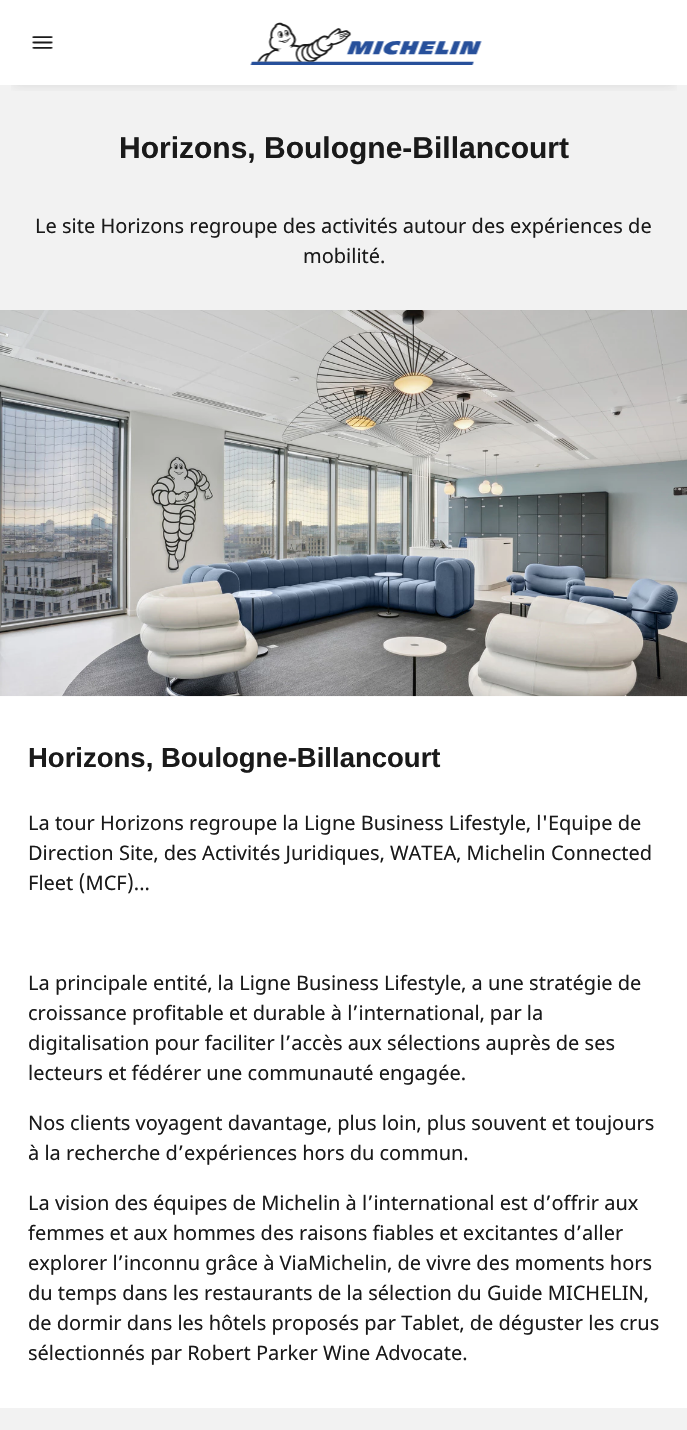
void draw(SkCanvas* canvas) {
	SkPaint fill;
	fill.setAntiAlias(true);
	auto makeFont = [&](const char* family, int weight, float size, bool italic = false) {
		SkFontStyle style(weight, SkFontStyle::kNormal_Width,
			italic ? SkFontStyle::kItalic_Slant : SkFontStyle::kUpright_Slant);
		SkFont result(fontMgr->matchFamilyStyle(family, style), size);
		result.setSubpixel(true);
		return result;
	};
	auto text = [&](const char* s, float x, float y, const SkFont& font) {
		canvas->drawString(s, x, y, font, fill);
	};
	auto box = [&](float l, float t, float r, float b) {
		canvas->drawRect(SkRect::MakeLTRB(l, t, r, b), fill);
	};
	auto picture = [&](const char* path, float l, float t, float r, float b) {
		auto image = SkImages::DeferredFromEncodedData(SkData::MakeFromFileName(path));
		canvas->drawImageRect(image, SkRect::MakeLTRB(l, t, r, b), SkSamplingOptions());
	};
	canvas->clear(0xFFFFFFFF);
	fill.setColor(0xFFF2F2F2);
	box(0, 85, 687, 310);
	canvas->save();
	canvas->clipRect(SkRect::MakeLTRB(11, 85, 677, 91));
	fill.setColor(0x1F333333);
	fill.setMaskFilter(SkMaskFilter::MakeBlur(kNormal_SkBlurStyle, 5));
	canvas->drawRect(SkRect::MakeLTRB(13, 26, 675, 86), fill);
	fill.setMaskFilter(nullptr);
	canvas->restore();
	picture("image0.png", 32, 36, 53, 49);
	picture("image1.png", 250, 22, 482, 65);
	picture("image2.png", 0, 310, 687, 697);
	fill.setColor(0xFFF2F2F2);
	box(0, 1408, 687, 1430);
	auto font1 = makeFont("Liberation Sans", 700, 30);
	fill.setColor(0xFF1A1A1A);
	text("Horizons, Boulogne-Billancourt", 119, 158, font1);
	auto font2 = makeFont("Noto Sans", 400, 20);
	text("Le site Horizons regroupe des activités autour des expériences de", 35, 233, font2);
	text("mobilité.", 303, 263, font2);
	auto font3 = makeFont("Liberation Sans", 700, 27.5f);
	text("Horizons, Boulogne-Billancourt", 28, 767, font3);
	text("La tour Horizons regroupe la Ligne Business Lifestyle, l'Equipe de", 28, 830, font2);
	text("Direction Site, des Activités Juridiques, WATEA, Michelin Connected", 28, 860, font2);
	text("Fleet (MCF)...", 28, 890, font2);
	text("La principale entité, la Ligne Business Lifestyle, a une stratégie de", 28, 990, font2);
	text("croissance profitable et durable à l’international, par la", 28, 1020, font2);
	text("digitalisation pour faciliter l’accès aux sélections auprès de ses", 28, 1050, font2);
	text("lecteurs et fédérer une communauté engagée.", 28, 1080, font2);
	text("Nos clients voyagent davantage, plus loin, plus souvent et toujours", 28, 1130, font2);
	text("à la recherche d’expériences hors du commun.", 28, 1160, font2);
	text("La vision des équipes de Michelin à l’international est d’offrir aux", 28, 1210, font2);
	text("femmes et aux hommes des raisons fiables et excitantes d’aller", 28, 1240, font2);
	text("explorer l’inconnu grâce à ViaMichelin, de vivre des moments hors", 28, 1270, font2);
	text("du temps dans les restaurants de la sélection du Guide MICHELIN,", 28, 1300, font2);
	text("de dormir dans les hôtels proposés par Tablet, de déguster les crus", 28, 1330, font2);
	text("sélectionnés par Robert Parker Wine Advocate.", 28, 1360, font2);
}
